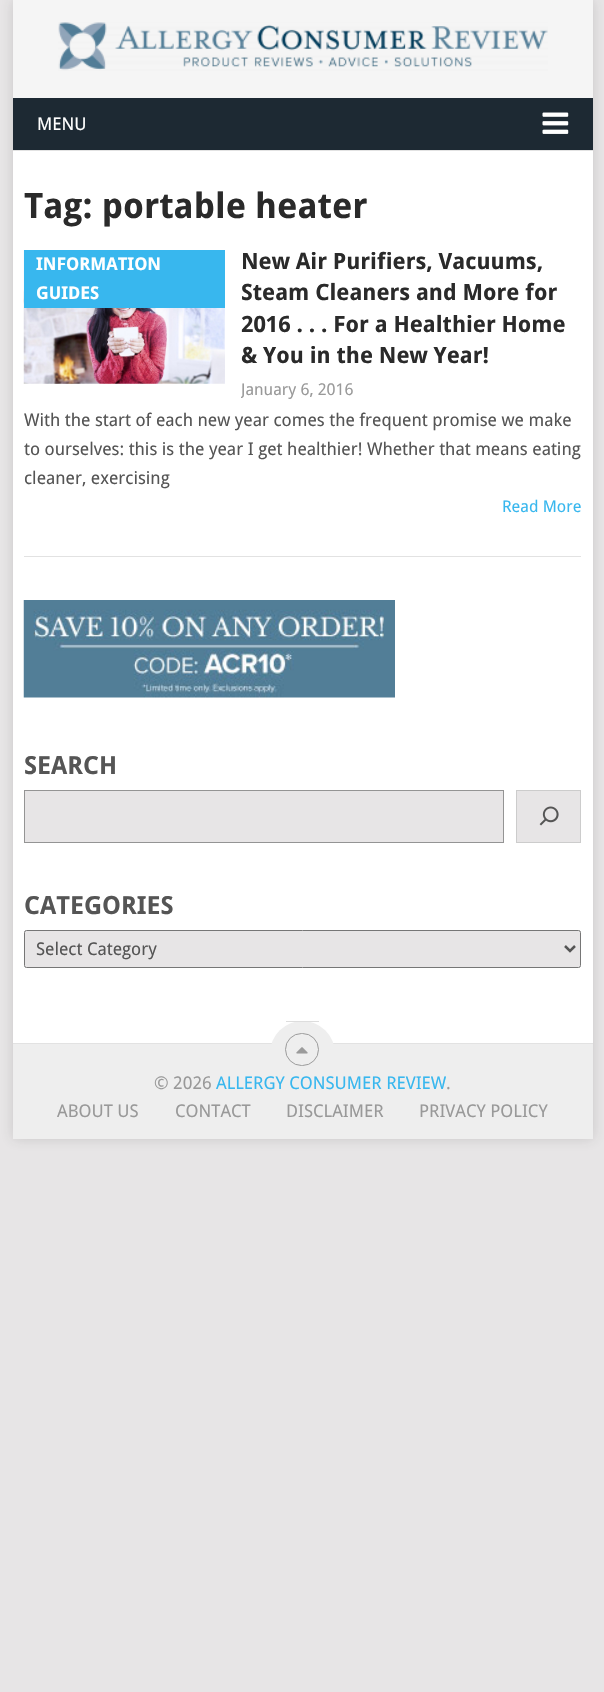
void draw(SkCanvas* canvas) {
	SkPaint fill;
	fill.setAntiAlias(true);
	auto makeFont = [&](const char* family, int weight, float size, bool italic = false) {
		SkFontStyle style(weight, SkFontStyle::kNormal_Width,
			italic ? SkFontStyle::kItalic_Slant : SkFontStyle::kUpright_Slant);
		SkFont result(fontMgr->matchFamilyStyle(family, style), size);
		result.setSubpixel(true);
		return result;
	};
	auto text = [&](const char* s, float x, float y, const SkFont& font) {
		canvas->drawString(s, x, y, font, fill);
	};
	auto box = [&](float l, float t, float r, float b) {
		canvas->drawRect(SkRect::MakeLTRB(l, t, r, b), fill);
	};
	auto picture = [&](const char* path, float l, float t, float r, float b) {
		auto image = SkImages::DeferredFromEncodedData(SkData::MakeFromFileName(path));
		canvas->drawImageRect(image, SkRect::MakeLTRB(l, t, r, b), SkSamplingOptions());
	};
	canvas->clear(0xFFE7E5E6);
	fill.setColor(0x2B323232);
	fill.setMaskFilter(SkMaskFilter::MakeBlur(kNormal_SkBlurStyle, 6));
	canvas->drawRect(SkRect::MakeLTRB(13, 0, 593, 1139), fill);
	fill.setMaskFilter(nullptr);
	fill.setColor(0xFFFFFFFF);
	box(13, 151, 593, 1043);
	fill.setColor(0xFFF5F5F5);
	box(13, 0, 593, 98);
	picture("image0.png", 58, 22, 548, 71);
	fill.setColor(0xFF1D2933);
	box(13, 98, 593, 150);
	picture("image1.png", 542, 112, 569, 134);
	fill.setColor(0xFFE2E2E2);
	box(13, 150, 593, 151);
	box(24, 556, 581, 557);
	picture("image2.png", 23, 250, 225, 384);
	fill.setColor(0xFF38B7EE);
	box(24, 250, 225, 308);
	picture("image3.png", 23, 600, 395, 698);
	fill.setColor(0xFFE7E5E6);
	canvas->drawRect(SkRect::MakeLTRB(24.5f, 790.5f, 503.5f, 842.5f), fill);
	fill.setStyle(SkPaint::kStroke_Style);
	fill.setStrokeWidth(1);
	fill.setColor(0xFF949494);
	canvas->drawRect(SkRect::MakeLTRB(24.5f, 790.5f, 503.5f, 842.5f), fill);
	fill.setStyle(SkPaint::kFill_Style);
	fill.setColor(0xFFE7E5E6);
	canvas->drawRect(SkRect::MakeLTRB(516.5f, 790.5f, 580.5f, 842.5f), fill);
	fill.setStyle(SkPaint::kStroke_Style);
	fill.setColor(0xFFCCCCCC);
	canvas->drawRect(SkRect::MakeLTRB(516.5f, 790.5f, 580.5f, 842.5f), fill);
	picture("image4.png", 539, 806, 559, 826);
	fill.setStyle(SkPaint::kFill_Style);
	fill.setColor(0xFFE7E5E6);
	canvas->drawRoundRect(SkRect::MakeLTRB(24.5f, 930.5f, 580.5f, 967.5f), 2, 2, fill);
	fill.setStyle(SkPaint::kStroke_Style);
	fill.setColor(0xFF767676);
	canvas->drawRoundRect(SkRect::MakeLTRB(24.5f, 930.5f, 580.5f, 967.5f), 2, 2, fill);
	fill.setStrokeWidth(2.5f);
	fill.setColor(0xFF555555);
	canvas->drawPath(SkPathBuilder().moveTo(565, 946).lineTo(570, 951).lineTo(575, 946).detach(), fill);
	fill.setStyle(SkPaint::kFill_Style);
	fill.setColor(0xFFEEEEEE);
	box(13, 1044, 593, 1139);
	fill.setColor(0xFFE2E2E2);
	box(13, 1043, 593, 1044);
	fill.setColor(0xFFEEEEEE);
	canvas->drawCircle(302.5f, 1053.5f, 32.5f, fill);
	fill.setColor(0xFFDDDDDD);
	box(286, 1021, 319, 1022);
	fill.setStyle(SkPaint::kStroke_Style);
	fill.setStrokeWidth(1);
	fill.setColor(0xFF9B9B9B);
	canvas->drawRoundRect(SkRect::MakeLTRB(285.5f, 1033.5f, 318.5f, 1065.5f), 16, 16, fill);
	picture("image5.png", 296, 1047, 308, 1054);
	auto font1 = makeFont("Droid Sans", 400, 17.5f);
	fill.setStyle(SkPaint::kFill_Style);
	fill.setColor(0xFFFFFFFF);
	text("MENU", 37, 130, font1);
	auto font2 = makeFont("Droid Sans", 700, 35);
	fill.setColor(0xFF2A2A2A);
	text("Tag: portable heater", 24, 218, font2);
	auto font3 = makeFont("Droid Sans", 700, 17.5f);
	fill.setColor(0xFFFFFFFF);
	text("INFORMATION", 36, 270, font3);
	text("GUIDES", 36, 299, font3);
	auto font4 = makeFont("Droid Sans", 700, 22.5f);
	fill.setColor(0xFF2A2A2A);
	text("New Air Purifiers, Vacuums,", 241, 269, font4);
	text("Steam Cleaners and More for", 241, 300, font4);
	text("2016 . . . For a Healthier Home", 241, 332, font4);
	text("& You in the New Year!", 241, 363, font4);
	canvas->save();
	canvas->clipRect(SkRect::MakeLTRB(241, 245, 581, 404));
	auto font5 = makeFont("Droid Sans", 400, 16.25f);
	fill.setColor(0xFF999999);
	text("January 6, 2016", 241, 395, font5);
	canvas->restore();
	fill.setColor(0xFF555555);
	text("With the start of each new year comes the frequent promise we make", 24, 426, font1);
	text("to ourselves: this is the year I get healthier! Whether that means eating", 24, 455, font1);
	text("cleaner, exercising", 24, 484, font1);
	fill.setColor(0xFF38B7EE);
	text("Read More", 502, 512, font5);
	auto font6 = makeFont("Droid Sans", 700, 25);
	fill.setColor(0xFF555555);
	text("SEARCH", 24, 774, font6);
	text("CATEGORIES", 24, 914, font6);
	text("Select Category", 36, 955, font1);
	fill.setColor(0xFF999999);
	text("© 2026", 154, 1089, font1);
	fill.setColor(0xFF38B7EE);
	text("ALLERGY CONSUMER REVIEW", 216, 1089, font1);
	fill.setColor(0xFF999999);
	text(".", 446, 1089, font1);
	text("ABOUT US", 57, 1117, font1);
	text("CONTACT", 175, 1117, font1);
	text("DISCLAIMER", 286, 1117, font1);
	text("PRIVACY POLICY", 419, 1117, font1);
}
